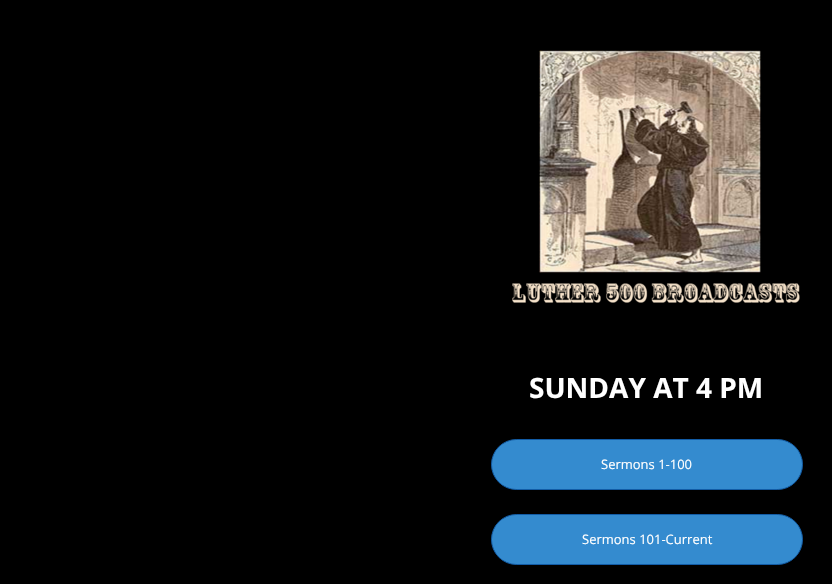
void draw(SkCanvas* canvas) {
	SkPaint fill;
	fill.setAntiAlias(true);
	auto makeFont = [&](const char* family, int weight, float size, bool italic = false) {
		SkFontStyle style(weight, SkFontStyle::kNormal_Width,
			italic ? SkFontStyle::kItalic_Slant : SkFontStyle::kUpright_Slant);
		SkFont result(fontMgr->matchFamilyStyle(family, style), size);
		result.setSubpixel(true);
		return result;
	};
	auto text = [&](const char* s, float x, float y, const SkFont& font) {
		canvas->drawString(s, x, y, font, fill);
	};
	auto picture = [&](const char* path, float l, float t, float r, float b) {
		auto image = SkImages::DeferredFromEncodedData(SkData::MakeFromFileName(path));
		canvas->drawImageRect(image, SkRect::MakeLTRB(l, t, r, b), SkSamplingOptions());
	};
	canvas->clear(0xFF000000);
	picture("image0.png", 512, 50, 800, 303);
	fill.setColor(0xFF348BCF);
	canvas->drawRoundRect(SkRect::MakeLTRB(491.5f, 439.5f, 802.5f, 489.5f), 25, 25, fill);
	fill.setStyle(SkPaint::kStroke_Style);
	fill.setStrokeWidth(1);
	fill.setColor(0xFF125CA6);
	canvas->drawRoundRect(SkRect::MakeLTRB(491.5f, 439.5f, 802.5f, 489.5f), 25, 25, fill);
	fill.setStyle(SkPaint::kFill_Style);
	fill.setColor(0xFF348BCF);
	canvas->drawRoundRect(SkRect::MakeLTRB(491.5f, 514.5f, 802.5f, 564.5f), 25, 25, fill);
	fill.setStyle(SkPaint::kStroke_Style);
	fill.setColor(0xFF125CA6);
	canvas->drawRoundRect(SkRect::MakeLTRB(491.5f, 514.5f, 802.5f, 564.5f), 25, 25, fill);
	auto font1 = makeFont("Open Sans", 700, 28);
	fill.setStyle(SkPaint::kFill_Style);
	fill.setColor(0xFFFFFFFF);
	text("SUNDAY AT 4 PM", 529, 398, font1);
	auto font2 = makeFont("Open Sans", 400, 13);
	text("Sermons 1-100", 601, 469, font2);
	text("Sermons 101-Current", 582, 544, font2);
}
